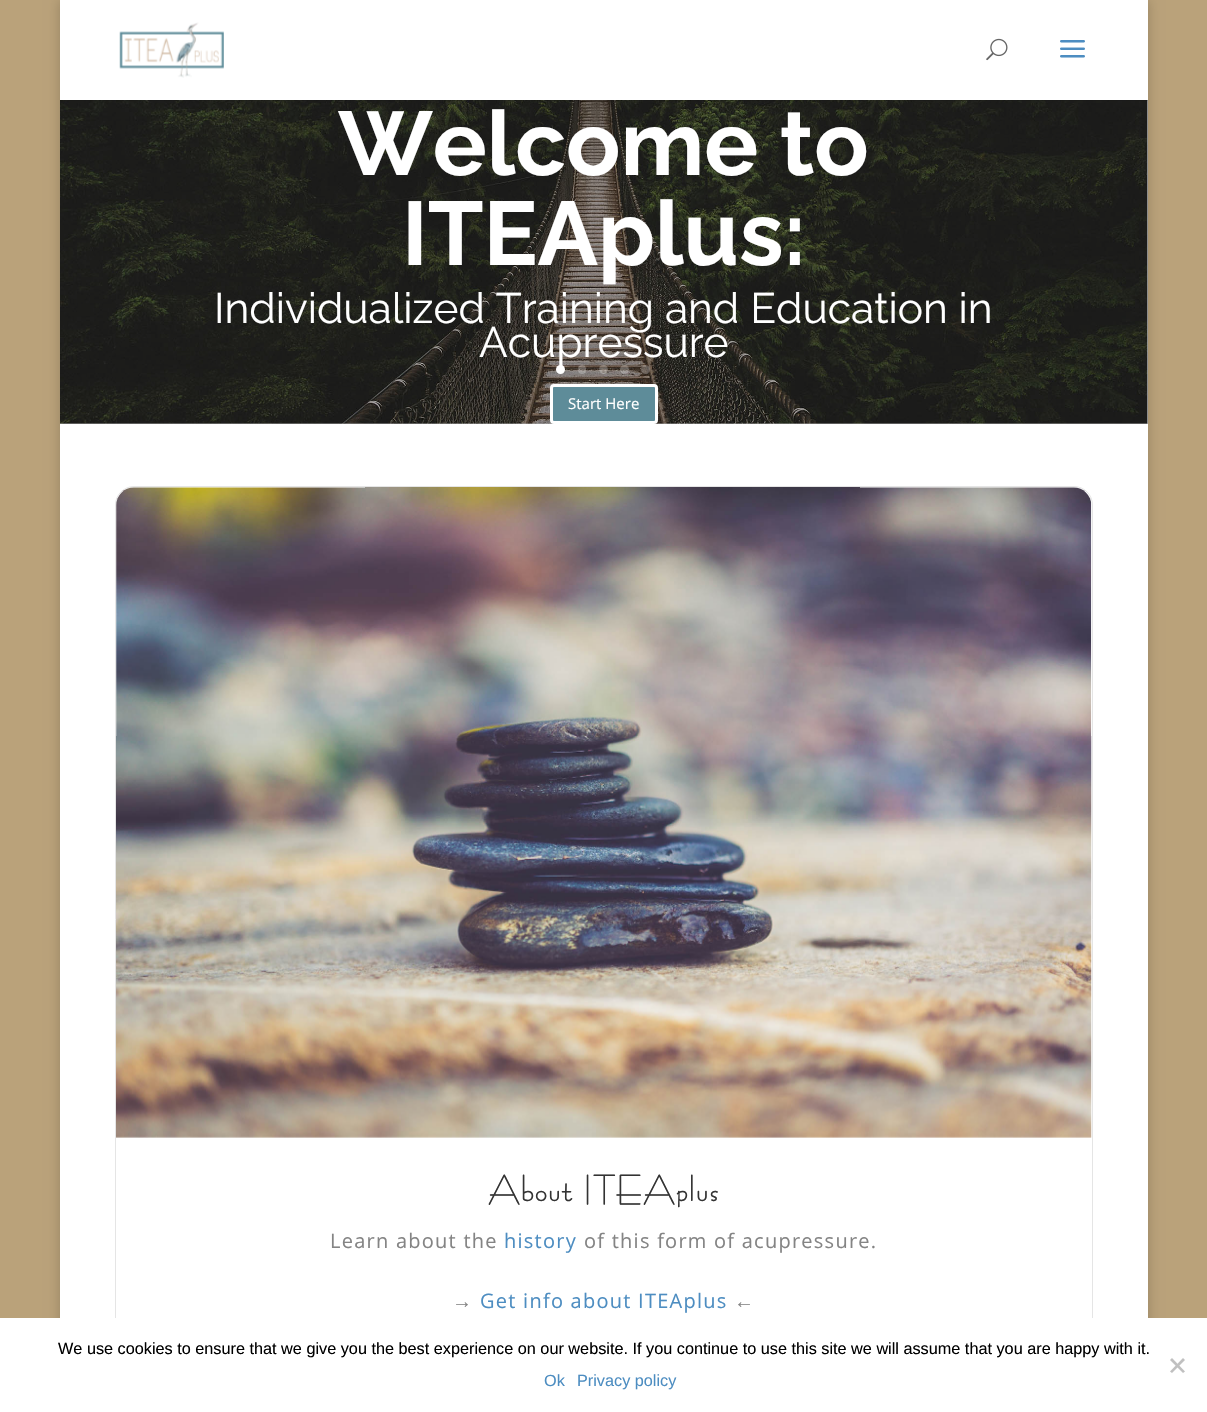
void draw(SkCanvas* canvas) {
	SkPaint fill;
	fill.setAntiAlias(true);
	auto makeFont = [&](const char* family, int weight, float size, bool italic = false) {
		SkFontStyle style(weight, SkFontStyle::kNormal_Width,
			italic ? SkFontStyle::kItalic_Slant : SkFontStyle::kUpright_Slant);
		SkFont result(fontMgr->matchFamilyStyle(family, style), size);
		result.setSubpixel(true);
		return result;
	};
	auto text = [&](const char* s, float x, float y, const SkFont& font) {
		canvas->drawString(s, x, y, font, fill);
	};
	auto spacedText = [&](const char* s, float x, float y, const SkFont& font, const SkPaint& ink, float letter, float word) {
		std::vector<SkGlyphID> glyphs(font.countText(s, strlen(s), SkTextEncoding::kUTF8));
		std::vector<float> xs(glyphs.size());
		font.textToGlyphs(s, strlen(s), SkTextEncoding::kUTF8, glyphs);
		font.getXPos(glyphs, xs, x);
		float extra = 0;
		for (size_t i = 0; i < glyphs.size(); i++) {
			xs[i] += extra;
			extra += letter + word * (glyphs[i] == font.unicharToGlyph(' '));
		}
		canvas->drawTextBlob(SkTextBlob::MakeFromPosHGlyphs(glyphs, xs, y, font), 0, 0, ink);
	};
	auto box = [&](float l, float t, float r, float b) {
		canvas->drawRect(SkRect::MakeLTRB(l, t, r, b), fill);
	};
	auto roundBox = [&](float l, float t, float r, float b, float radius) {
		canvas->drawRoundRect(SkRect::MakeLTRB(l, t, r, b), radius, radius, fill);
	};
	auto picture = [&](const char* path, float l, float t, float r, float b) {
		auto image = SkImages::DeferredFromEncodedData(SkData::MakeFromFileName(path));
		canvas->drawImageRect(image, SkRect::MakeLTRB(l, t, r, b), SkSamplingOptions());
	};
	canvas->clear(0xFFBAA27A);
	fill.setColor(0x33000000);
	fill.setMaskFilter(SkMaskFilter::MakeBlur(kNormal_SkBlurStyle, 6));
	canvas->drawRect(SkRect::MakeLTRB(60, 0, 1148, 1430), fill);
	fill.setMaskFilter(nullptr);
	fill.setColor(0xFFFFFFFF);
	box(60, 0, 1148, 1318);
	picture("image3.png", 60, 100, 1148, 424);
	fill.setColor(0x4D000000);
	box(60, 100, 1148, 424);
	fill.setColor(0x1A000000);
	canvas->drawPath(SkPathBuilder().moveTo(60, 100).lineTo(60, 101).lineTo(1148, 101).lineTo(1148, 1).lineTo(1148, 100).close().detach(), fill);
	picture("image0.png", 119, 22, 224, 78);
	picture("image1.png", 986, 38, 1008, 61);
	picture("image2.png", 1060, 40, 1085, 58);
	fill.setColor(0xFF5E8C99);
	canvas->drawRoundRect(SkRect::MakeLTRB(551.5f, 385.5f, 656.5f, 422.5f), 2.5f, 2.5f, fill);
	fill.setStyle(SkPaint::kStroke_Style);
	fill.setStrokeWidth(3);
	fill.setColor(0xFFFFFFFF);
	canvas->drawRoundRect(SkRect::MakeLTRB(551.5f, 385.5f, 656.5f, 422.5f), 2.5f, 2.5f, fill);
	fill.setStyle(SkPaint::kFill_Style);
	canvas->drawCircle(560.5f, 369.5f, 4.5f, fill);
	fill.setStyle(SkPaint::kStroke_Style);
	fill.setStrokeWidth(1);
	fill.setColor(0xFFE5E5E5);
	canvas->drawRoundRect(SkRect::MakeLTRB(115.5f, 486.5f, 1092.5f, 1352.5f), 18.5f, 18.5f, fill);
	picture("image4.png", 116, 487, 1092, 1138);
	fill.setStyle(SkPaint::kFill_Style);
	fill.setColor(0xFFFFFFFF);
	box(0, 1318, 1207, 1412);
	fill.setColor(0xFFC0C0C0);
	canvas->drawPath(SkPathBuilder().moveTo(1183, 1358).lineTo(1185, 1360).lineTo(1172, 1373).lineTo(1170, 1371.5f).close().detach(), fill);
	canvas->drawPath(SkPathBuilder().moveTo(1170, 1360).lineTo(1172, 1358).lineTo(1185, 1371.5f).lineTo(1183, 1373).close().detach(), fill);
	auto font1 = makeFont("Raleway", 700, 90);
	fill.setColor(0xFFFFFFFF);
	text("Welcome to", 338, 175, font1);
	text("ITEAplus:", 402, 265, font1);
	auto font2 = makeFont("Raleway", 400, 42.5f);
	text("Individualized Training and Education in", 214, 323, font2);
	text("Acupressure", 479, 357, font2);
	auto font3 = makeFont("Open Sans", 400, 15);
	text("Start Here", 568, 409, font3);
	fill.setColor(0x40FFFFFF);
	roundBox(578, 365, 586, 374, 4);
	canvas->drawCircle(603.5f, 369.5f, 4.5f, fill);
	canvas->drawCircle(624.5f, 369.5f, 4.5f, fill);
	canvas->drawCircle(645.5f, 369.5f, 4.5f, fill);
	auto font4 = makeFont("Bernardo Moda", 700, 32.5f);
	fill.setColor(0xFF333333);
	spacedText("About ITEAplus", 488, 1201, font4, fill, 1.25f, 0);
	auto font5 = makeFont("Open Sans", 400, 20);
	fill.setColor(0xFF848484);
	spacedText("Learn about the", 330, 1248, font5, fill, 1.25f, 0);
	fill.setColor(0xFF4D8DC1);
	spacedText("history", 504, 1248, font5, fill, 1.25f, 0);
	fill.setColor(0xFF848484);
	spacedText("of this form of acupressure.", 584, 1248, font5, fill, 1.25f, 0);
	auto font6 = makeFont("Liberation Sans", 400, 20);
	spacedText("→", 452, 1308, font6, fill, 1.25f, 0);
	fill.setColor(0xFF4D8DC1);
	spacedText("Get info about ITEAplus", 480, 1308, font5, fill, 1.25f, 0);
	fill.setColor(0xFF848484);
	spacedText("←", 734, 1308, font6, fill, 1.25f, 0);
	auto font7 = makeFont("Liberation Sans", 400, 16.25f);
	fill.setColor(0xFF000000);
	text("We use cookies to ensure that we give you the best experience on our website. If you continue to use this site we will assume that you are happy with it.", 58, 1354, font7);
	fill.setColor(0xFF4D8DC1);
	text("Ok", 544, 1386, font7);
	text("Privacy policy", 577, 1386, font7);
}
